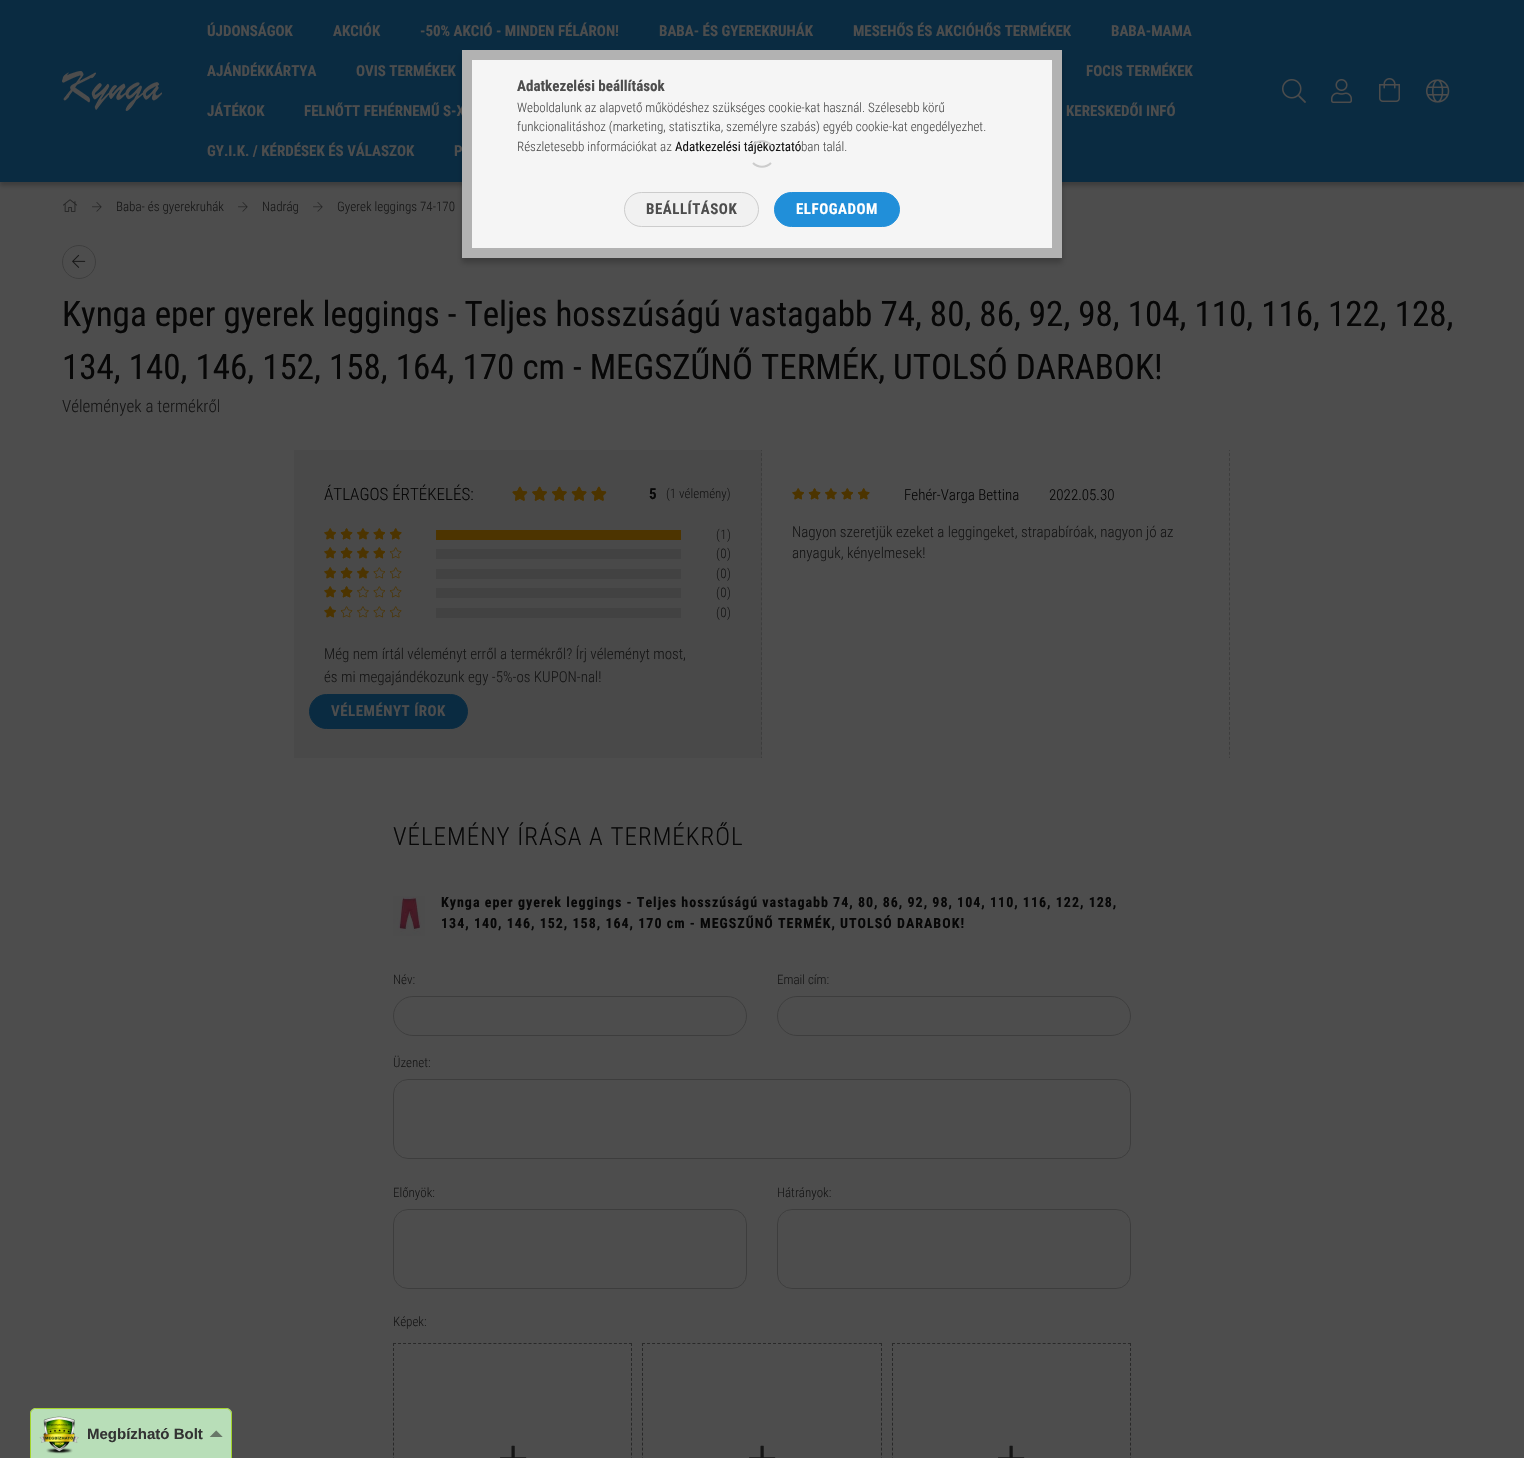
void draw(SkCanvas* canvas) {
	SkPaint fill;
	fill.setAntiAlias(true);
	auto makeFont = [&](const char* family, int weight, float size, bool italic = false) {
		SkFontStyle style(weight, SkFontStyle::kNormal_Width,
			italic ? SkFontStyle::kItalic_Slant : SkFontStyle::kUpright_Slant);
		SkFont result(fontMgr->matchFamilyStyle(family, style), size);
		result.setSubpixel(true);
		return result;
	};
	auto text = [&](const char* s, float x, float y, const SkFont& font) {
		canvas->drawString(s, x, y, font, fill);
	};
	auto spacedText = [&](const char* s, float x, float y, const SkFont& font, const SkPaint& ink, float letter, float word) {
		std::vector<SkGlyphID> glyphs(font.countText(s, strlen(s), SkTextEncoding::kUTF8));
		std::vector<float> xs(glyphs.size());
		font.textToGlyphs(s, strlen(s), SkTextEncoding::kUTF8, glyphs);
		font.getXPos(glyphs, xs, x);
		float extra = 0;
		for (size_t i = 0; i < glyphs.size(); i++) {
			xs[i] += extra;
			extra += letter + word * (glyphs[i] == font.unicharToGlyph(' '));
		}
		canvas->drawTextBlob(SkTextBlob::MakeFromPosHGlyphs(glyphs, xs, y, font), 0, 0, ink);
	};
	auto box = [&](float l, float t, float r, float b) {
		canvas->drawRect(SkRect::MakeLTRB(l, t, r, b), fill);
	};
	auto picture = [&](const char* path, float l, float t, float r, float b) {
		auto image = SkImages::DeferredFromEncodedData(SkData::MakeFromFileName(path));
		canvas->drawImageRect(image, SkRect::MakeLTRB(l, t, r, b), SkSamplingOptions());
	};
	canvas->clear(0xFF4D4D4D);
	fill.setColor(0x33000000);
	fill.setMaskFilter(SkMaskFilter::MakeBlur(kNormal_SkBlurStyle, 2));
	canvas->drawRect(SkRect::MakeLTRB(0, 4, 1524, 186), fill);
	fill.setMaskFilter(nullptr);
	fill.setColor(0xFF0A2B41);
	box(0, 0, 1524, 182);
	picture("image0.png", 62, 71, 162, 111);
	picture("image1.png", 1282, 79, 1306, 103);
	picture("image2.png", 1331, 79, 1352, 103);
	picture("image3.png", 1379, 78, 1400, 102);
	picture("image4.png", 1426, 79, 1450, 103);
	picture("image5.png", 63, 199, 78, 212);
	picture("image6.png", 92, 202, 102, 212);
	picture("image6.png", 238, 202, 248, 212);
	picture("image6.png", 313, 202, 323, 212);
	fill.setStyle(SkPaint::kStroke_Style);
	fill.setStrokeWidth(1);
	fill.setColor(0xFF3D3D3D);
	canvas->drawCircle(79, 262, 16.5f, fill);
	picture("image7.png", 72, 254, 86, 268);
	fill.setStyle(SkPaint::kFill_Style);
	fill.setColor(0xFF494949);
	box(294, 450, 762, 758);
	canvas->save();
	canvas->clipRect(SkRect::MakeLTRB(62, 450, 1462, 758));
	fill.setStyle(SkPaint::kStroke_Style);
	fill.setColor(0xFF3D3D3D);
	fill.setPathEffect(SkDashPathEffect::Make({{3, 1.98f}}, 0));
	canvas->drawPath(SkPathBuilder().moveTo(761.5f, 448).lineTo(761.5f, 760).detach(), fill);
	fill.setPathEffect(nullptr);
	canvas->restore();
	picture("image8.png", 512, 486, 607, 501);
	picture("image9.png", 512, 486, 607, 501);
	picture("image10.png", 324, 528, 402, 540);
	picture("image11.png", 324, 528, 402, 540);
	fill.setStyle(SkPaint::kFill_Style);
	fill.setColor(0xFF4D3400);
	box(436, 530, 681, 540);
	picture("image10.png", 324, 547, 402, 559);
	picture("image12.png", 324, 547, 385, 559);
	fill.setColor(0xFF424242);
	box(436, 549, 681, 559);
	picture("image10.png", 324, 567, 402, 579);
	picture("image13.png", 324, 567, 369, 579);
	box(436, 569, 681, 579);
	picture("image10.png", 324, 586, 402, 598);
	picture("image14.png", 324, 586, 353, 598);
	box(436, 588, 681, 598);
	picture("image10.png", 324, 606, 402, 618);
	picture("image15.png", 324, 606, 336, 618);
	box(436, 608, 681, 618);
	fill.setColor(0xFF0A2B41);
	canvas->drawRoundRect(SkRect::MakeLTRB(309.5f, 694.5f, 467.5f, 728.5f), 17, 17, fill);
	fill.setStyle(SkPaint::kStroke_Style);
	canvas->drawRoundRect(SkRect::MakeLTRB(309.5f, 694.5f, 467.5f, 728.5f), 17, 17, fill);
	canvas->save();
	canvas->clipRect(SkRect::MakeLTRB(62, 450, 1462, 758));
	fill.setColor(0xFF3D3D3D);
	fill.setPathEffect(SkDashPathEffect::Make({{3, 1.98f}}, 0));
	canvas->drawPath(SkPathBuilder().moveTo(1229.5f, 448).lineTo(1229.5f, 760).detach(), fill);
	fill.setPathEffect(nullptr);
	canvas->restore();
	picture("image16.png", 792, 488, 870, 500);
	picture("image17.png", 792, 488, 870, 500);
	picture("image18.png", 393, 896, 425, 936);
	canvas->drawRoundRect(SkRect::MakeLTRB(393.5f, 996.5f, 746.5f, 1035.5f), 19.5f, 19.5f, fill);
	canvas->drawRoundRect(SkRect::MakeLTRB(777.5f, 996.5f, 1130.5f, 1035.5f), 19.5f, 19.5f, fill);
	canvas->drawRoundRect(SkRect::MakeLTRB(393.5f, 1079.5f, 1130.5f, 1158.5f), 14.5f, 14.5f, fill);
	canvas->drawRoundRect(SkRect::MakeLTRB(393.5f, 1209.5f, 746.5f, 1288.5f), 14.5f, 14.5f, fill);
	canvas->drawRoundRect(SkRect::MakeLTRB(777.5f, 1209.5f, 1130.5f, 1288.5f), 14.5f, 14.5f, fill);
	fill.setColor(0xFF292929);
	fill.setPathEffect(SkDashPathEffect::Make({{3, 2.02f}}, 0));
	canvas->drawPath(SkPathBuilder().moveTo(393, 1343.5f).lineTo(632, 1343.5f).detach(), fill);
	fill.setPathEffect(nullptr);
	fill.setPathEffect(SkDashPathEffect::Make({{3, 1.98f}}, 0));
	canvas->drawPath(SkPathBuilder().moveTo(631.5f, 1343).lineTo(631.5f, 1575).detach(), fill);
	fill.setPathEffect(nullptr);
	fill.setPathEffect(SkDashPathEffect::Make({{3, 1.98f}}, 0));
	canvas->drawPath(SkPathBuilder().moveTo(393.5f, 1343).lineTo(393.5f, 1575).detach(), fill);
	fill.setPathEffect(nullptr);
	picture("image19.png", 500, 1445, 527, 1458);
	fill.setPathEffect(SkDashPathEffect::Make({{3, 2.04f}}, 0));
	canvas->drawPath(SkPathBuilder().moveTo(642, 1343.5f).lineTo(882, 1343.5f).detach(), fill);
	fill.setPathEffect(nullptr);
	fill.setPathEffect(SkDashPathEffect::Make({{3, 1.98f}}, 0));
	canvas->drawPath(SkPathBuilder().moveTo(881.5f, 1343).lineTo(881.5f, 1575).detach(), fill);
	fill.setPathEffect(nullptr);
	fill.setPathEffect(SkDashPathEffect::Make({{3, 1.98f}}, 0));
	canvas->drawPath(SkPathBuilder().moveTo(642.5f, 1343).lineTo(642.5f, 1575).detach(), fill);
	fill.setPathEffect(nullptr);
	picture("image19.png", 749, 1445, 776, 1458);
	fill.setPathEffect(SkDashPathEffect::Make({{3, 2.02f}}, 0));
	canvas->drawPath(SkPathBuilder().moveTo(892, 1343.5f).lineTo(1131, 1343.5f).detach(), fill);
	fill.setPathEffect(nullptr);
	fill.setPathEffect(SkDashPathEffect::Make({{3, 1.98f}}, 0));
	canvas->drawPath(SkPathBuilder().moveTo(1130.5f, 1343).lineTo(1130.5f, 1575).detach(), fill);
	fill.setPathEffect(nullptr);
	fill.setPathEffect(SkDashPathEffect::Make({{3, 1.98f}}, 0));
	canvas->drawPath(SkPathBuilder().moveTo(892.5f, 1343).lineTo(892.5f, 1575).detach(), fill);
	fill.setPathEffect(nullptr);
	picture("image19.png", 998, 1445, 1025, 1458);
	fill.setStyle(SkPaint::kFill_Style);
	fill.setColor(0x33000000);
	fill.setMaskFilter(SkMaskFilter::MakeBlur(kNormal_SkBlurStyle, 2.5f));
	canvas->drawRect(SkRect::MakeLTRB(462, 55, 1062, 263), fill);
	fill.setMaskFilter(nullptr);
	fill.setColor(0xFFB8DEB8);
	canvas->drawPath(SkPathBuilder().moveTo(36, 1408).lineTo(226, 1408).cubicTo(229.5f, 1408, 232, 1410.5f, 232, 1414).lineTo(232, 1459).lineTo(30, 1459).lineTo(30, 1414).cubicTo(30, 1410.5f, 32.5f, 1408, 36, 1408).close().detach(), fill);
	fill.setColor(0xCC9FD107);
	canvas->drawPath(SkPathBuilder(SkPathFillType::kEvenOdd).moveTo(36, 1408).lineTo(226, 1408).cubicTo(229, 1408, 232, 1411, 232, 1414).lineTo(232, 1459).lineTo(30, 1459).lineTo(30, 1414).cubicTo(30, 1411, 33, 1408, 36, 1408).close().moveTo(36, 1409).lineTo(226, 1409).cubicTo(229, 1409, 231, 1411, 231, 1414).lineTo(231, 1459).lineTo(31, 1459).lineTo(31, 1414).cubicTo(31, 1411, 33, 1409, 36, 1409).close().detach(), fill);
	picture("image20.png", 39, 1416, 79, 1454);
	auto font1 = makeFont("Roboto Condensed", 700, 15);
	fill.setColor(0xFF4D4D4D);
	text("ÚJDONSÁGOK", 207, 36, font1);
	text("AKCIÓK", 333, 36, font1);
	text("-50% AKCIÓ - MINDEN FÉLÁRON!", 420, 36, font1);
	text("BABA- ÉS GYEREKRUHÁK", 659, 36, font1);
	text("MESEHŐS ÉS AKCIÓHŐS TERMÉKEK", 853, 36, font1);
	text("BABA-MAMA", 1111, 36, font1);
	text("AJÁNDÉKKÁRTYA", 207, 76, font1);
	text("OVIS TERMÉKEK", 356, 76, font1);
	text("FOCIS TERMÉKEK", 1086, 76, font1);
	text("JÁTÉKOK", 207, 116, font1);
	text("FELNŐTT FEHÉRNEMŰ S-X", 304, 116, font1);
	text("KERESKEDŐI INFÓ", 1066, 116, font1);
	text("GY.I.K. / KÉRDÉSEK ÉS VÁLASZOK", 207, 156, font1);
	text("P", 454, 156, font1);
	auto font2 = makeFont("Roboto Condensed", 300, 13);
	fill.setColor(0xFF161616);
	text("Baba- és gyerekruhák", 116, 211, font2);
	text("Nadrág", 262, 211, font2);
	text("Gyerek leggings 74-170", 337, 211, font2);
	auto font3 = makeFont("Roboto Condensed", 400, 35);
	fill.setColor(0xFF070707);
	text("Kynga eper gyerek leggings - Teljes hosszúságú vastagabb 74, 80, 86, 92, 98, 104, 110, 116, 122, 128,", 62, 326, font3);
	text("134, 140, 146, 152, 158, 164, 170 cm - MEGSZŰNŐ TERMÉK, UTOLSÓ DARABOK!", 62, 379, font3);
	auto font4 = makeFont("Roboto Condensed", 300, 17);
	fill.setColor(0xFF161616);
	text("Vélemények a termékről", 62, 412, font4);
	fill.setColor(0xFF070707);
	text("ÁTLAGOS ÉRTÉKELÉS:", 324, 500, font4);
	text("5", 649, 499, font1);
	fill.setColor(0xFF161616);
	text("(1 vélemény)", 666, 498, font2);
	spacedText("(1)", 716, 539, font2, fill, 0.5f, 0);
	spacedText("(0)", 716, 558, font2, fill, 0.5f, 0);
	spacedText("(0)", 716, 578, font2, fill, 0.5f, 0);
	spacedText("(0)", 716, 597, font2, fill, 0.5f, 0);
	spacedText("(0)", 716, 617, font2, fill, 0.5f, 0);
	auto font5 = makeFont("Roboto Condensed", 300, 15);
	text("Még nem írtál véleményt erről a termékről? Írj véleményt most,", 324, 659, font5);
	text("és mi megajándékozunk egy -5%-os KUPON-nal!", 324, 682, font5);
	fill.setColor(0xFF4D4D4D);
	spacedText("VÉLEMÉNYT ÍROK", 331, 716, font1, fill, 0.5f, 0);
	fill.setColor(0xFF070707);
	text("Fehér-Varga Bettina", 904, 500, font5);
	text("2022.05.30", 1049, 500, font5);
	fill.setColor(0xFF161616);
	text("Nagyon szeretjük ezeket a leggingeket, strapabíróak, nagyon jó az", 792, 537, font5);
	text("anyaguk, kényelmesek!", 792, 558, font5);
	auto font6 = makeFont("Roboto Condensed", 300, 25);
	fill.setColor(0xFF070707);
	spacedText("VÉLEMÉNY ÍRÁSA A TERMÉKRŐL", 393, 845, font6, fill, 1, 0);
	auto font7 = makeFont("Roboto Condensed", 700, 14);
	spacedText("Kynga eper gyerek leggings - Teljes hosszúságú vastagabb 74, 80, 86, 92, 98, 104, 110, 116, 122, 128,", 441, 907, font7, fill, 1, 0);
	spacedText("134, 140, 146, 152, 158, 164, 170 cm - MEGSZŰNŐ TERMÉK, UTOLSÓ DARABOK!", 441, 928, font7, fill, 1, 0);
	fill.setColor(0xFF161616);
	text("Név:", 393, 984, font2);
	text("Email cím:", 777, 984, font2);
	text("Üzenet:", 393, 1067, font2);
	text("Előnyök:", 393, 1197, font2);
	text("Hátrányok:", 777, 1197, font2);
	text("Képek:", 393, 1326, font2);
	fill.setStyle(SkPaint::kStroke_Style);
	fill.setStrokeWidth(10);
	fill.setColor(0xFFB2B2B2);
	canvas->drawRect(SkRect::MakeLTRB(467, 55, 1057, 253), fill);
	fill.setStyle(SkPaint::kFill_Style);
	fill.setColor(0xFFF5F5F5);
	box(472, 60, 1052, 248);
	fill.setColor(0xFF4D4D4D);
	text("Adatkezelési beállítások", 517, 91, font1);
	text("Weboldalunk az alapvető működéshez szükséges cookie-kat használ. Szélesebb körű", 517, 112, font2);
	text("funkcionalitáshoz (marketing, statisztika, személyre szabás) egyéb cookie-kat engedélyezhet.", 517, 131, font2);
	text("Részletesebb információkat az", 517, 151, font2);
	auto font8 = makeFont("Roboto Condensed", 400, 13);
	fill.setColor(0xFF161616);
	text("Adatkezelési tájékoztató", 675, 151, font8);
	fill.setColor(0xFF4D4D4D);
	text("ban talál.", 801, 151, font2);
	fill.setColor(0xFFF1F1F1);
	canvas->drawRoundRect(SkRect::MakeLTRB(624.5f, 192.5f, 758.5f, 226.5f), 17, 17, fill);
	fill.setStyle(SkPaint::kStroke_Style);
	fill.setStrokeWidth(1);
	fill.setColor(0xFFCCCCCC);
	canvas->drawRoundRect(SkRect::MakeLTRB(624.5f, 192.5f, 758.5f, 226.5f), 17, 17, fill);
	fill.setStyle(SkPaint::kFill_Style);
	fill.setColor(0xFF4D4D4D);
	spacedText("BEÁLLÍTÁSOK", 646, 214, font1, fill, 0.5f, 0);
	fill.setColor(0xFF218FD9);
	canvas->drawRoundRect(SkRect::MakeLTRB(774.5f, 192.5f, 899.5f, 226.5f), 17, 17, fill);
	fill.setStyle(SkPaint::kStroke_Style);
	canvas->drawRoundRect(SkRect::MakeLTRB(774.5f, 192.5f, 899.5f, 226.5f), 17, 17, fill);
	fill.setStyle(SkPaint::kFill_Style);
	fill.setColor(0xFFFFFFFF);
	spacedText("ELFOGADOM", 796, 214, font1, fill, 0.5f, 0);
	fill.setStyle(SkPaint::kStroke_Style);
	fill.setStrokeWidth(2);
	fill.setColor(0xFFCCCCCC);
	canvas->drawPath(SkPathBuilder().moveTo(753, 145).cubicTo(758, 140, 766, 140, 771, 145).moveTo(771, 163).cubicTo(766, 168, 758, 168, 753, 163).detach(), fill);
	auto font9 = makeFont("Liberation Sans", 700, 15);
	fill.setStyle(SkPaint::kFill_Style);
	fill.setColor(0xFF333333);
	text("Megbízható Bolt", 87, 1439, font9);
	auto font10 = makeFont("FreeSans", 400, 18);
	fill.setColor(0xFF687768);
	text("⏶", 209, 1440, font10);
}
